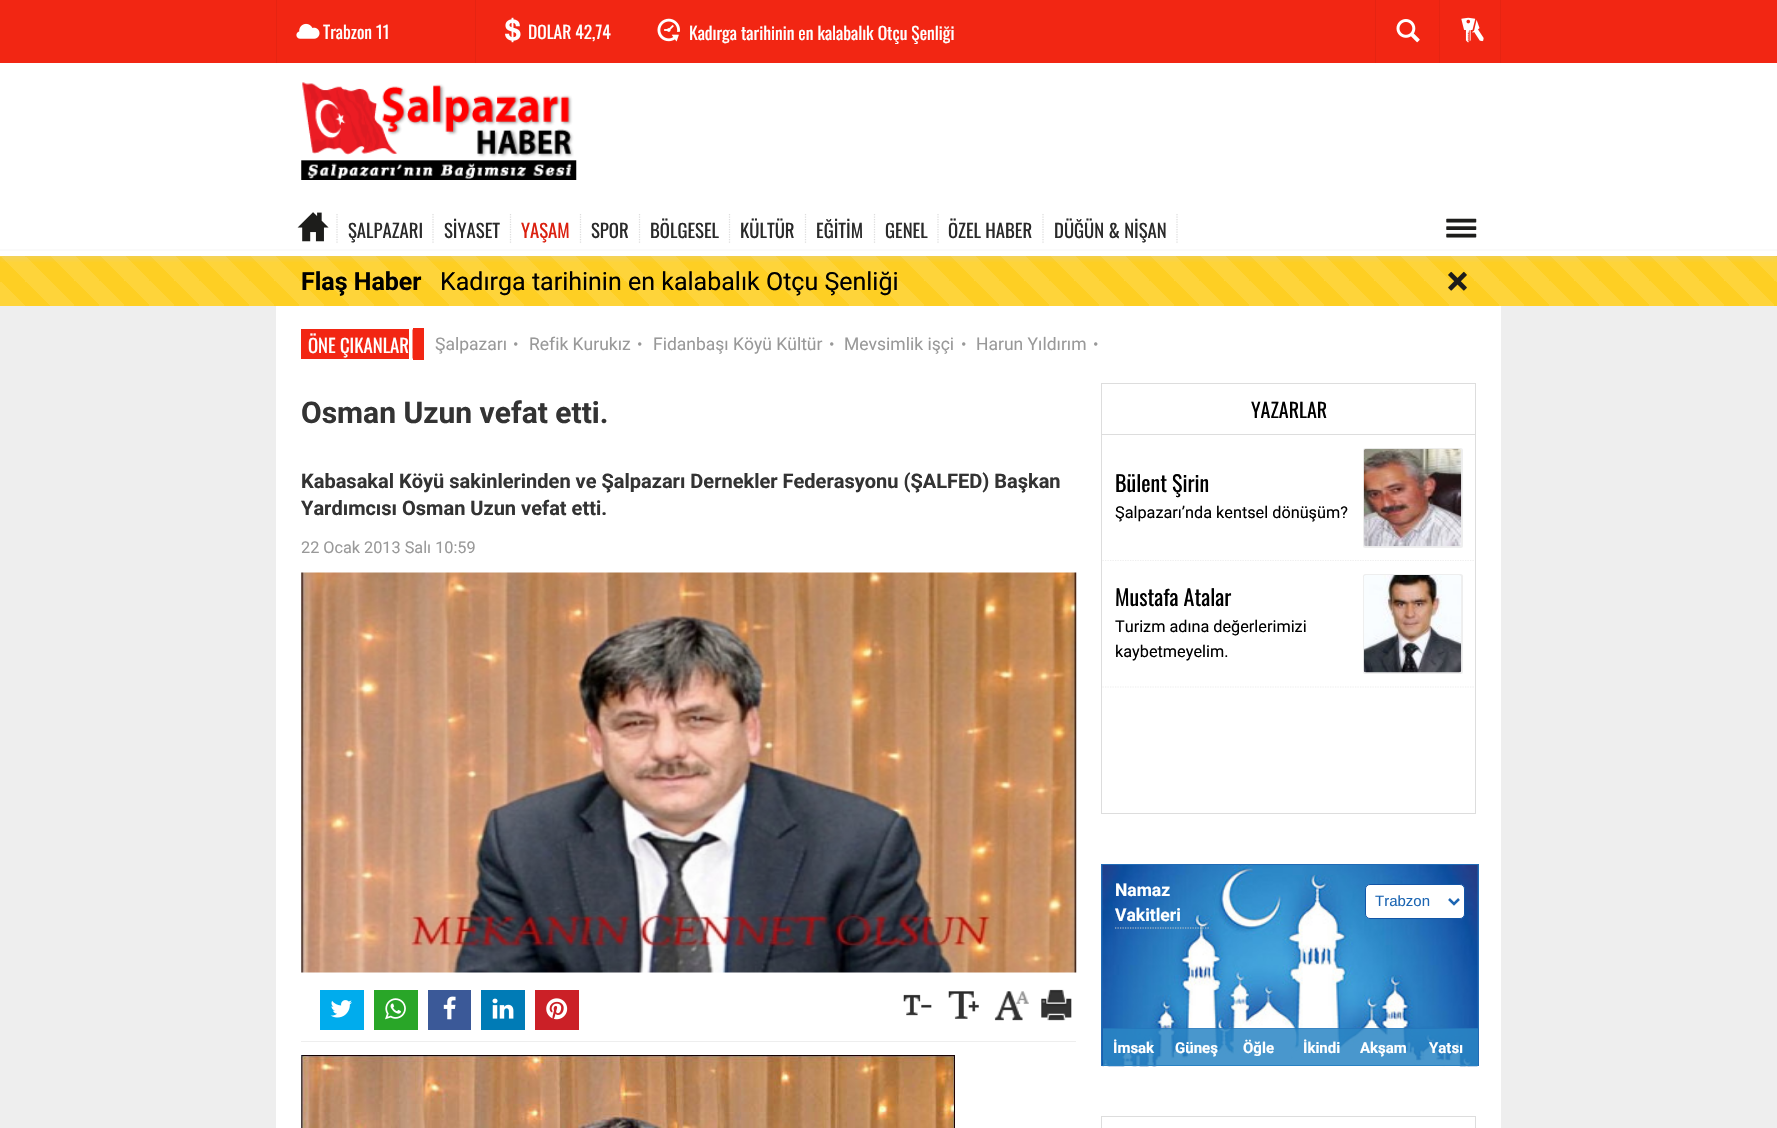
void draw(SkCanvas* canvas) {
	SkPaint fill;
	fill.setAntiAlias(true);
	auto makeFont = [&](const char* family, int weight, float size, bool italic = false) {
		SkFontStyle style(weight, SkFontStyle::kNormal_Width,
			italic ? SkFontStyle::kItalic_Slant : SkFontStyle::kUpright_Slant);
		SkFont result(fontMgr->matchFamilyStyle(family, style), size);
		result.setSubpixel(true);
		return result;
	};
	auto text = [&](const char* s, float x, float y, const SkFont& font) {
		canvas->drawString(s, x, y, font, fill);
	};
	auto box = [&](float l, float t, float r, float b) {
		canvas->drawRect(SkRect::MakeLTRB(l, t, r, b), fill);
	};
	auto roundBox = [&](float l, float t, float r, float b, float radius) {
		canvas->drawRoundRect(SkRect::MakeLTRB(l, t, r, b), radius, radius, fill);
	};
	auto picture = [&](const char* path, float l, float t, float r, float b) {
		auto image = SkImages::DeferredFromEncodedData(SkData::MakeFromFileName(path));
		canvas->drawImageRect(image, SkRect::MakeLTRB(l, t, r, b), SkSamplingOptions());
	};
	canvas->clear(0xFFEEEEEE);
	fill.setColor(0xFFFFFFFF);
	box(0, 63, 1777, 256);
	fill.setColor(0xFFF22613);
	box(0, 0, 1777, 63);
	fill.setColor(0xFFE62412);
	box(276, 0, 277, 63);
	picture("image0.png", 296, 23, 320, 39);
	box(475, 0, 476, 63);
	picture("image1.png", 505, 17, 521, 43);
	picture("image2.png", 657, 18, 680, 42);
	box(1375, 0, 1376, 63);
	picture("image3.png", 1396, 19, 1420, 43);
	box(1500, 0, 1501, 63);
	box(1439, 0, 1440, 63);
	picture("image4.png", 1461, 17, 1484, 43);
	picture("image5.png", 301, 82, 577, 180);
	fill.setColor(0xFFFECF23);
	box(0, 256, 1777, 306);
	picture("image8.png", 0, 256, 1777, 306);
	canvas->save();
	canvas->clipRect(SkRect::MakeLTRB(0, 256, 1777, 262));
	fill.setColor(0x40CCCCCC);
	fill.setMaskFilter(SkMaskFilter::MakeBlur(kNormal_SkBlurStyle, 2.5f));
	canvas->drawRect(SkRect::MakeLTRB(0, 209, 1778, 259), fill);
	fill.setMaskFilter(nullptr);
	canvas->restore();
	fill.setColor(0xFFFAFAFA);
	box(0, 249, 1777, 251);
	fill.setStyle(SkPaint::kStroke_Style);
	fill.setStrokeWidth(1.2f);
	fill.setColor(0xFFDDDDDD);
	fill.setPathEffect(SkDashPathEffect::Make({{1.25f, 1.25f}}, 0));
	canvas->drawPath(SkPathBuilder().moveTo(337, 214).lineTo(337, 244).detach(), fill);
	fill.setPathEffect(nullptr);
	picture("image6.png", 297, 212, 329, 242);
	fill.setPathEffect(SkDashPathEffect::Make({{1.25f, 1.25f}}, 0));
	canvas->drawPath(SkPathBuilder().moveTo(433, 214).lineTo(433, 244).detach(), fill);
	fill.setPathEffect(nullptr);
	fill.setPathEffect(SkDashPathEffect::Make({{1.25f, 1.25f}}, 0));
	canvas->drawPath(SkPathBuilder().moveTo(510.5f, 214).lineTo(510.5f, 244).detach(), fill);
	fill.setPathEffect(nullptr);
	fill.setPathEffect(SkDashPathEffect::Make({{1.25f, 1.25f}}, 0));
	canvas->drawPath(SkPathBuilder().moveTo(580.5f, 214).lineTo(580.5f, 244).detach(), fill);
	fill.setPathEffect(nullptr);
	fill.setPathEffect(SkDashPathEffect::Make({{1.25f, 1.25f}}, 0));
	canvas->drawPath(SkPathBuilder().moveTo(639.5f, 214).lineTo(639.5f, 244).detach(), fill);
	fill.setPathEffect(nullptr);
	fill.setPathEffect(SkDashPathEffect::Make({{1.25f, 1.25f}}, 0));
	canvas->drawPath(SkPathBuilder().moveTo(729.5f, 214).lineTo(729.5f, 244).detach(), fill);
	fill.setPathEffect(nullptr);
	fill.setPathEffect(SkDashPathEffect::Make({{1.25f, 1.25f}}, 0));
	canvas->drawPath(SkPathBuilder().moveTo(805.5f, 214).lineTo(805.5f, 244).detach(), fill);
	fill.setPathEffect(nullptr);
	fill.setPathEffect(SkDashPathEffect::Make({{1.25f, 1.25f}}, 0));
	canvas->drawPath(SkPathBuilder().moveTo(874.5f, 214).lineTo(874.5f, 244).detach(), fill);
	fill.setPathEffect(nullptr);
	fill.setPathEffect(SkDashPathEffect::Make({{1.25f, 1.25f}}, 0));
	canvas->drawPath(SkPathBuilder().moveTo(938, 214).lineTo(938, 244).detach(), fill);
	fill.setPathEffect(nullptr);
	fill.setPathEffect(SkDashPathEffect::Make({{1.25f, 1.25f}}, 0));
	canvas->drawPath(SkPathBuilder().moveTo(1043, 214).lineTo(1043, 244).detach(), fill);
	fill.setPathEffect(nullptr);
	fill.setPathEffect(SkDashPathEffect::Make({{1.25f, 1.25f}}, 0));
	canvas->drawPath(SkPathBuilder().moveTo(1177, 214).lineTo(1177, 244).detach(), fill);
	fill.setPathEffect(nullptr);
	picture("image7.png", 1446, 218, 1477, 238);
	picture("image9.png", 1448, 271, 1467, 291);
	fill.setStyle(SkPaint::kFill_Style);
	fill.setColor(0xFFFFFFFF);
	box(276, 306, 1501, 1128);
	fill.setColor(0xFFF22613);
	box(301, 329, 409, 359);
	box(413, 328, 424, 360);
	canvas->drawPath(SkPathBuilder().moveTo(412.5f, 359).lineTo(412.5f, 329).lineTo(420, 344).close().detach(), fill);
	picture("image10.png", 301, 572, 1077, 973);
	fill.setColor(0xFFEEEEEE);
	box(301, 1041, 1076, 1042);
	fill.setColor(0xFF00ACED);
	box(320, 990, 364, 1030);
	picture("image11.png", 330, 1000, 352, 1018);
	fill.setColor(0xFF29A628);
	box(374, 990, 418, 1030);
	picture("image12.png", 385, 998, 406, 1020);
	fill.setColor(0xFF3B5998);
	box(428, 990, 471, 1030);
	picture("image13.png", 443, 996, 456, 1020);
	fill.setColor(0xFF007BB6);
	box(481, 990, 525, 1030);
	picture("image14.png", 492, 998, 514, 1019);
	fill.setColor(0xFFCB2027);
	box(535, 990, 579, 1030);
	picture("image15.png", 546, 998, 568, 1020);
	picture("image16.png", 903, 994, 932, 1016);
	picture("image17.png", 948, 991, 979, 1019);
	picture("image18.png", 994, 991, 1029, 1021);
	picture("image19.png", 1041, 989, 1072, 1021);
	picture("image20.png", 301, 1055, 955, 1128);
	fill.setStyle(SkPaint::kStroke_Style);
	fill.setStrokeWidth(1);
	fill.setColor(0xFFDDDDDD);
	canvas->drawRect(SkRect::MakeLTRB(1101.5f, 383.5f, 1475.5f, 434.5f), fill);
	fill.setStyle(SkPaint::kFill_Style);
	box(1475, 435, 1476, 814);
	box(1101, 813, 1476, 814);
	box(1101, 435, 1102, 814);
	fill.setStyle(SkPaint::kStroke_Style);
	fill.setStrokeWidth(1.2f);
	fill.setColor(0xFFEEEEEE);
	fill.setPathEffect(SkDashPathEffect::Make({{1.25f, 1.25f}}, 0));
	canvas->drawPath(SkPathBuilder().moveTo(1102.5f, 560.5f).lineTo(1475, 560.5f).detach(), fill);
	fill.setPathEffect(nullptr);
	fill.setStyle(SkPaint::kFill_Style);
	roundBox(1363, 448, 1463, 548, 2.5f);
	picture("image21.png", 1363, 448, 1462, 547);
	fill.setStyle(SkPaint::kStroke_Style);
	fill.setPathEffect(SkDashPathEffect::Make({{1.25f, 1.25f}}, 0));
	canvas->drawPath(SkPathBuilder().moveTo(1102.5f, 687).lineTo(1475, 687).detach(), fill);
	fill.setPathEffect(nullptr);
	fill.setStyle(SkPaint::kFill_Style);
	roundBox(1363, 574, 1463, 674, 2.5f);
	picture("image22.png", 1363, 575, 1462, 673);
	fill.setColor(0xFF1C61AF);
	box(1102, 865, 1478, 1065);
	picture("image23.png", 1102, 865, 1478, 1067);
	fill.setStyle(SkPaint::kStroke_Style);
	fill.setStrokeWidth(1);
	fill.setColor(0xFF216BB6);
	canvas->drawRect(SkRect::MakeLTRB(1101.5f, 864.5f, 1478.5f, 1065.5f), fill);
	fill.setStrokeWidth(1.2f);
	fill.setColor(0xFFCCCCCC);
	fill.setPathEffect(SkDashPathEffect::Make({{1.25f, 1.25f}}, 0));
	canvas->drawPath(SkPathBuilder().moveTo(1115, 928).lineTo(1209, 928).detach(), fill);
	fill.setPathEffect(nullptr);
	fill.setStyle(SkPaint::kFill_Style);
	fill.setColor(0xFFFFFFFF);
	canvas->drawRoundRect(SkRect::MakeLTRB(1365.5f, 884.5f, 1464.5f, 918.5f), 4.5f, 4.5f, fill);
	fill.setStyle(SkPaint::kStroke_Style);
	fill.setStrokeWidth(1);
	fill.setColor(0xFF1255A6);
	canvas->drawRoundRect(SkRect::MakeLTRB(1365.5f, 884.5f, 1464.5f, 918.5f), 4.5f, 4.5f, fill);
	fill.setStrokeWidth(2.5f);
	fill.setColor(0xFF1D66B3);
	canvas->drawPath(SkPathBuilder().moveTo(1449, 899).lineTo(1454, 904).lineTo(1459, 899).detach(), fill);
	fill.setStyle(SkPaint::kFill_Style);
	fill.setColor(0xD92985C4);
	box(1103, 1028, 1478, 1066);
	fill.setColor(0x401255A6);
	box(1103, 1028, 1478, 1029);
	fill.setStyle(SkPaint::kStroke_Style);
	fill.setStrokeWidth(1);
	fill.setColor(0xFFDDDDDD);
	canvas->drawRect(SkRect::MakeLTRB(1101.5f, 1116.5f, 1475.5f, 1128.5f), fill);
	auto font1 = makeFont("Oswald", 400, 17.5f);
	fill.setStyle(SkPaint::kFill_Style);
	fill.setColor(0xFFFFFFFF);
	text("Trabzon 11", 323, 39, font1);
	text("DOLAR 42,74", 528, 39, font1);
	text("Kadırga tarihinin en kalabalık Otçu Şenliği", 689, 40, font1);
	auto font2 = makeFont("Oswald", 400, 18.75f);
	fill.setColor(0xFF2A2A2A);
	text("ŞALPAZARI", 348, 238, font2);
	text("SİYASET", 444, 238, font2);
	fill.setColor(0xFFDB200F);
	text("YAŞAM", 521, 238, font2);
	fill.setColor(0xFF2A2A2A);
	text("SPOR", 591, 238, font2);
	text("BÖLGESEL", 650, 238, font2);
	text("KÜLTÜR", 740, 238, font2);
	text("EĞİTİM", 816, 238, font2);
	text("GENEL", 885, 238, font2);
	text("ÖZEL HABER", 948, 238, font2);
	text("DÜĞÜN & NİŞAN", 1054, 238, font2);
	auto font3 = makeFont("Roboto", 700, 25);
	fill.setColor(0xFF000000);
	text("Flaş Haber", 301, 290, font3);
	auto font4 = makeFont("Roboto", 400, 25);
	text("Kadırga tarihinin en kalabalık Otçu Şenliği", 440, 290, font4);
	fill.setColor(0xFFFFFFFF);
	text("ÖNE ÇIKANLAR", 308, 353, font2);
	auto font5 = makeFont("Roboto", 400, 17.5f);
	fill.setColor(0xFF999999);
	text("Şalpazarı", 435, 350, font5);
	auto font6 = makeFont("Roboto", 400, 16.25f);
	text("•", 513, 350, font6);
	text("Refik Kurukız", 529, 350, font5);
	text("•", 637, 350, font6);
	text("Fidanbaşı Köyü Kültür", 653, 350, font5);
	text("•", 829, 350, font6);
	text("Mevsimlik işçi", 844, 350, font5);
	text("•", 961, 350, font6);
	text("Harun Yıldırım", 976, 350, font5);
	text("•", 1093, 350, font6);
	auto font7 = makeFont("Roboto", 700, 30);
	fill.setColor(0xFF333333);
	text("Osman Uzun vefat etti.", 301, 423, font7);
	auto font8 = makeFont("Roboto", 700, 20);
	text("Kabasakal Köyü sakinlerinden ve Şalpazarı Dernekler Federasyonu (ŞALFED) Başkan", 301, 488, font8);
	text("Yardımcısı Osman Uzun vefat etti.", 301, 515, font8);
	fill.setColor(0xFF999999);
	text("22 Ocak 2013 Salı 10:59", 301, 553, font6);
	auto font9 = makeFont("Oswald", 400, 20);
	fill.setColor(0xFF000000);
	text("YAZARLAR", 1251, 418, font9);
	auto font10 = makeFont("Oswald", 400, 22);
	text("Bülent Şirin", 1115, 492, font10);
	text("Şalpazarı’nda kentsel dönüşüm?", 1115, 518, font6);
	text("Mustafa Atalar", 1115, 606, font10);
	text("Turizm adına değerlerimizi", 1115, 632, font6);
	text("kaybetmeyelim.", 1115, 657, font6);
	auto font11 = makeFont("Roboto", 700, 17.5f);
	fill.setColor(0xFFFFFFFF);
	text("Namaz", 1115, 896, font11);
	text("Vakitleri", 1115, 921, font11);
	auto font12 = makeFont("Liberation Sans", 400, 15);
	fill.setColor(0xFF1D66B3);
	text("Trabzon", 1375, 906, font12);
	auto font13 = makeFont("Roboto", 700, 15);
	fill.setColor(0xFFFFFFFF);
	text("İmsak", 1113, 1053, font13);
	text("Güneş", 1175, 1053, font13);
	text("Öğle", 1243, 1053, font13);
	text("İkindi", 1303, 1053, font13);
	text("Akşam", 1360, 1053, font13);
	text("Yatsı", 1429, 1053, font13);
}
